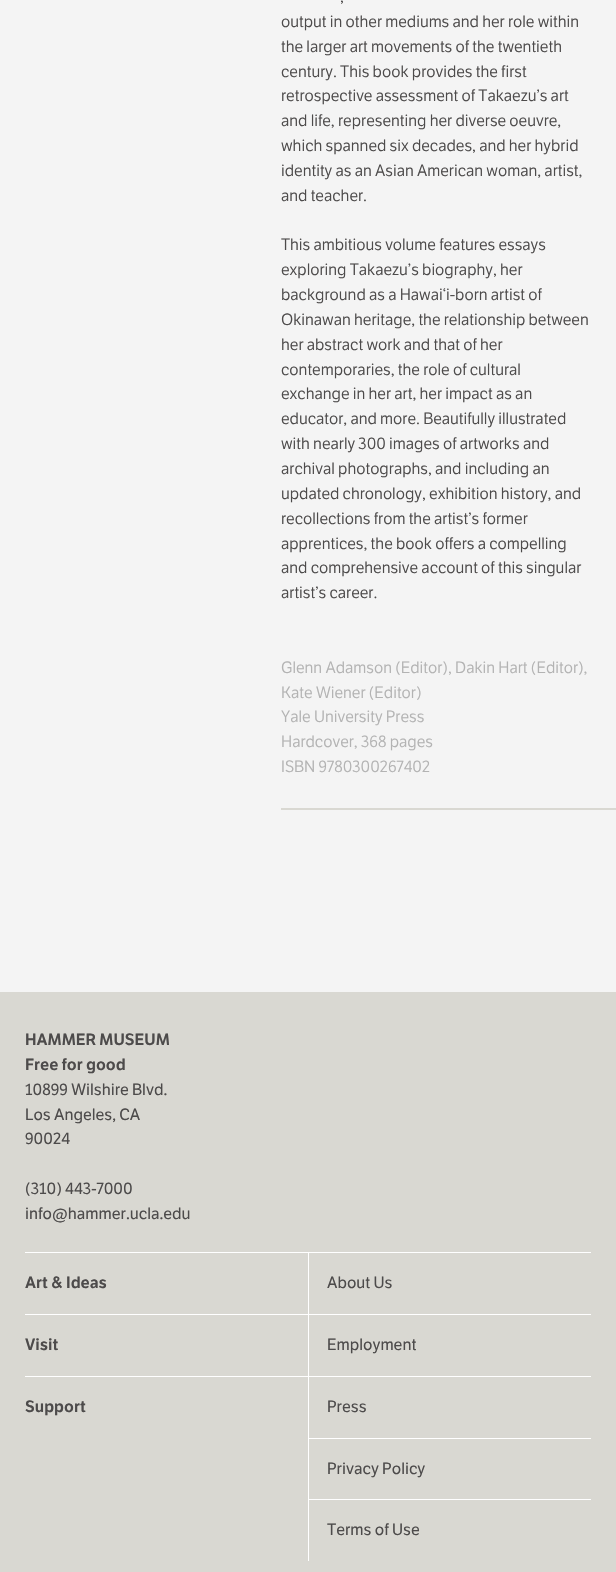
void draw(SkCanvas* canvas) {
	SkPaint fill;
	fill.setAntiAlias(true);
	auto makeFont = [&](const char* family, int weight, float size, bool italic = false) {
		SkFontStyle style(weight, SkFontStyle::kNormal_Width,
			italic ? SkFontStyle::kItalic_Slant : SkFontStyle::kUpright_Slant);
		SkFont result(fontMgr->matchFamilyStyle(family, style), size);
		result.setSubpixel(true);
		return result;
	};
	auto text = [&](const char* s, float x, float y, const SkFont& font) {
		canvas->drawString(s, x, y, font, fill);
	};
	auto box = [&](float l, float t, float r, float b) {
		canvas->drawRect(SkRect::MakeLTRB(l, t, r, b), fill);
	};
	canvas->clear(0xFFF4F4F4);
	fill.setColor(0xFFD9D8D2);
	box(281, 808, 616, 810);
	box(0, 992, 616, 1572);
	fill.setColor(0xFFFFFFFF);
	box(25, 1252, 308, 1253);
	box(25, 1314, 308, 1315);
	box(25, 1376, 308, 1377);
	box(308, 1252, 309, 1561);
	box(309, 1252, 591, 1253);
	box(309, 1314, 591, 1315);
	box(309, 1376, 591, 1377);
	box(309, 1438, 591, 1439);
	box(309, 1499, 591, 1500);
	auto font1 = makeFont("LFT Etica", 400, 16);
	fill.setColor(0xFF4D4B4B);
	text(",", 340, 2, font1);
	text("output in other mediums and her role within", 281, 27, font1);
	text("the larger art movements of the twentieth", 281, 52, font1);
	text("century. This book provides the first", 281, 77, font1);
	text("retrospective assessment of Takaezu’s art", 281, 101, font1);
	text("and life, representing her diverse oeuvre,", 281, 126, font1);
	text("which spanned six decades, and her hybrid", 281, 151, font1);
	text("identity as an Asian American woman, artist,", 281, 176, font1);
	text("and teacher.", 281, 201, font1);
	text("This ambitious volume features essays", 281, 250, font1);
	text("exploring Takaezu’s biography, her", 281, 275, font1);
	text("background as a Hawai‘i-born artist of", 281, 300, font1);
	text("Okinawan heritage, the relationship between", 281, 325, font1);
	text("her abstract work and that of her", 281, 350, font1);
	text("contemporaries, the role of cultural", 281, 375, font1);
	text("exchange in her art, her impact as an", 281, 399, font1);
	text("educator, and more. Beautifully illustrated", 281, 424, font1);
	text("with nearly 300 images of artworks and", 281, 449, font1);
	text("archival photographs, and including an", 281, 474, font1);
	text("updated chronology, exhibition history, and", 281, 499, font1);
	text("recollections from the artist’s former", 281, 524, font1);
	text("apprentices, the book offers a compelling", 281, 549, font1);
	text("and comprehensive account of this singular", 281, 573, font1);
	text("artist’s career.", 281, 598, font1);
	fill.setColor(0xFFB3B3B3);
	text("Glenn Adamson (Editor), Dakin Hart (Editor),", 281, 673, font1);
	text("Kate Wiener (Editor)", 281, 698, font1);
	text("Yale University Press", 281, 722, font1);
	text("Hardcover, 368 pages", 281, 747, font1);
	text("ISBN 9780300267402", 281, 772, font1);
	auto font2 = makeFont("LFT Etica", 600, 16);
	fill.setColor(0xFF4D4B4B);
	text("HAMMER MUSEUM", 25, 1045, font2);
	text("Free for good", 25, 1070, font2);
	auto font3 = makeFont("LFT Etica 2", 400, 16);
	text("10899 Wilshire Blvd.", 25, 1095, font3);
	text("Los Angeles, CA", 25, 1120, font3);
	text("90024", 25, 1144, font3);
	text("(310) 443-7000", 25, 1194, font3);
	text("info@hammer.ucla.edu", 25, 1219, font3);
	text("Art & Ideas", 25, 1288, font2);
	text("Visit", 25, 1350, font2);
	text("Support", 25, 1412, font2);
	text("About Us", 327, 1288, font3);
	text("Employment", 327, 1350, font3);
	text("Press", 327, 1412, font3);
	text("Privacy Policy", 327, 1474, font3);
	text("Terms of Use", 327, 1535, font3);
}
